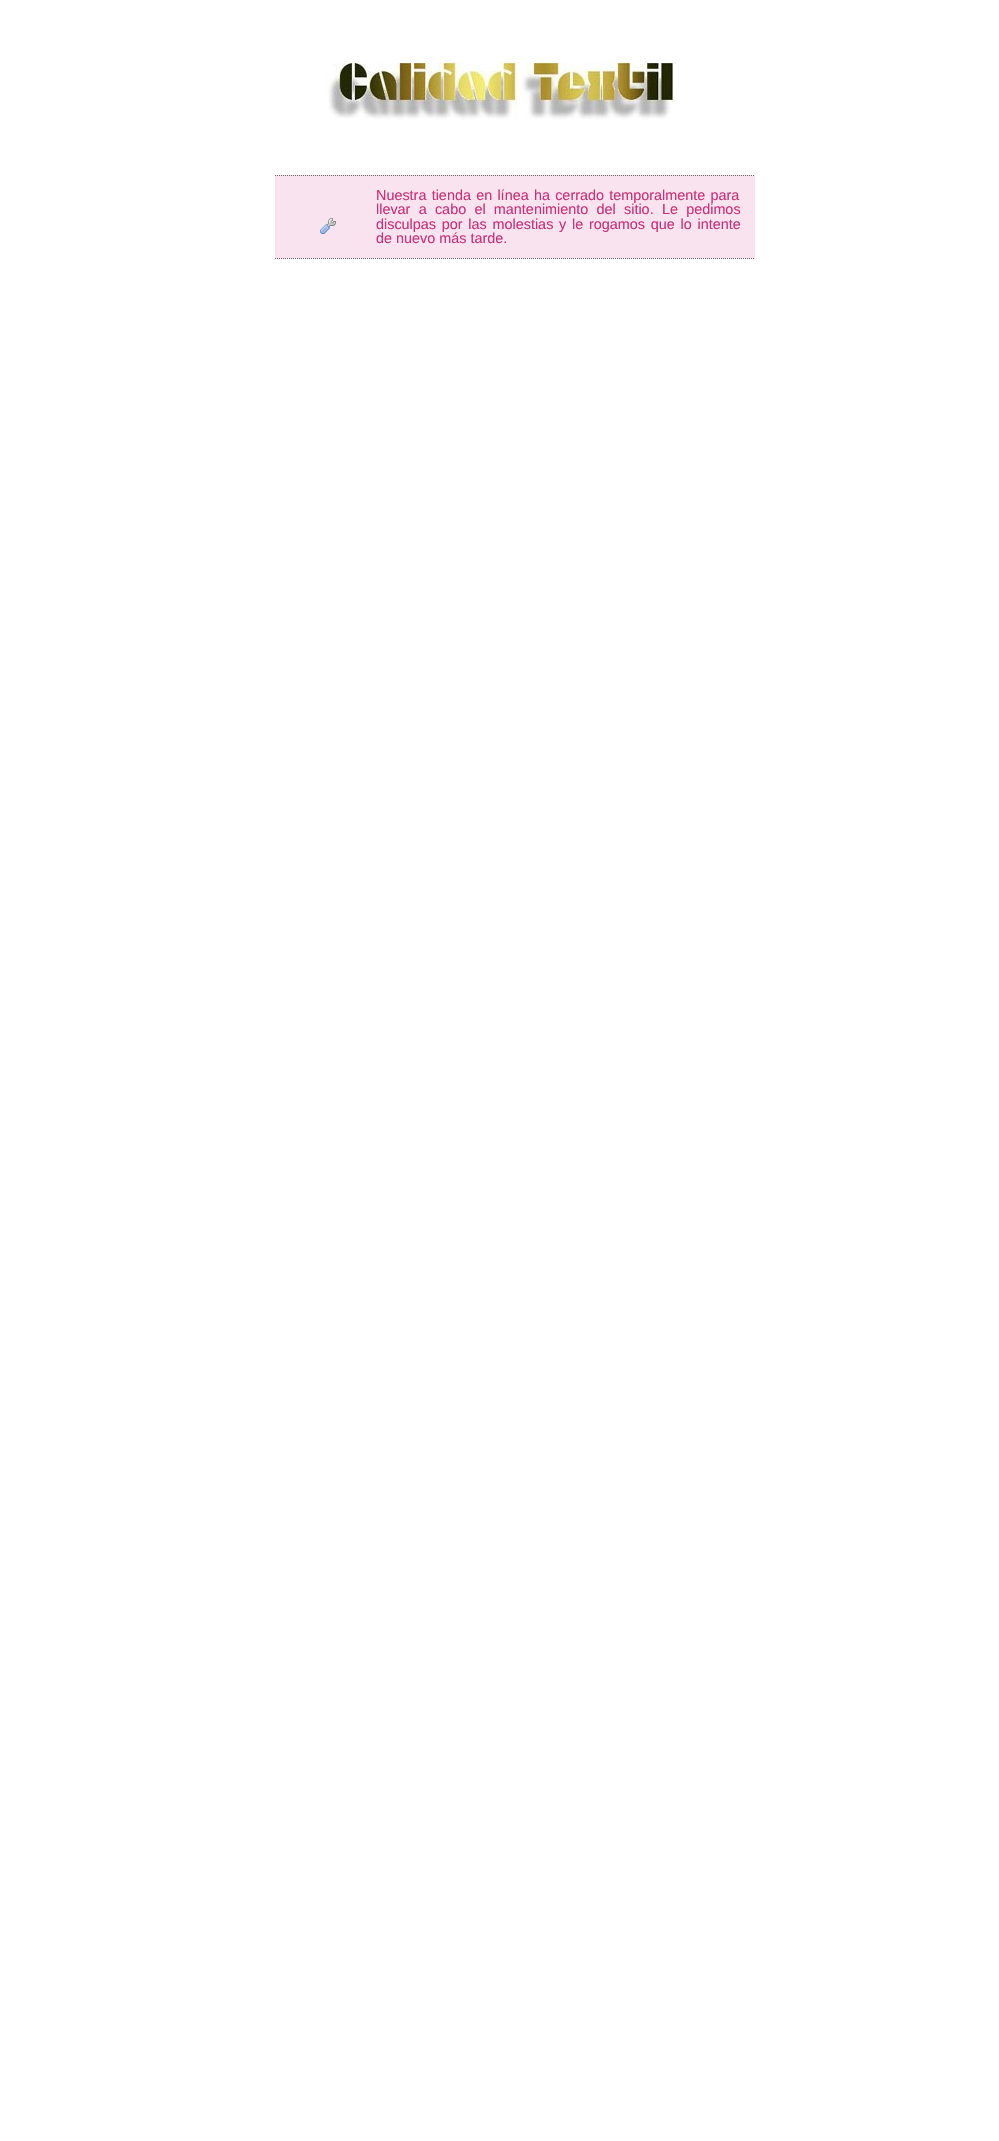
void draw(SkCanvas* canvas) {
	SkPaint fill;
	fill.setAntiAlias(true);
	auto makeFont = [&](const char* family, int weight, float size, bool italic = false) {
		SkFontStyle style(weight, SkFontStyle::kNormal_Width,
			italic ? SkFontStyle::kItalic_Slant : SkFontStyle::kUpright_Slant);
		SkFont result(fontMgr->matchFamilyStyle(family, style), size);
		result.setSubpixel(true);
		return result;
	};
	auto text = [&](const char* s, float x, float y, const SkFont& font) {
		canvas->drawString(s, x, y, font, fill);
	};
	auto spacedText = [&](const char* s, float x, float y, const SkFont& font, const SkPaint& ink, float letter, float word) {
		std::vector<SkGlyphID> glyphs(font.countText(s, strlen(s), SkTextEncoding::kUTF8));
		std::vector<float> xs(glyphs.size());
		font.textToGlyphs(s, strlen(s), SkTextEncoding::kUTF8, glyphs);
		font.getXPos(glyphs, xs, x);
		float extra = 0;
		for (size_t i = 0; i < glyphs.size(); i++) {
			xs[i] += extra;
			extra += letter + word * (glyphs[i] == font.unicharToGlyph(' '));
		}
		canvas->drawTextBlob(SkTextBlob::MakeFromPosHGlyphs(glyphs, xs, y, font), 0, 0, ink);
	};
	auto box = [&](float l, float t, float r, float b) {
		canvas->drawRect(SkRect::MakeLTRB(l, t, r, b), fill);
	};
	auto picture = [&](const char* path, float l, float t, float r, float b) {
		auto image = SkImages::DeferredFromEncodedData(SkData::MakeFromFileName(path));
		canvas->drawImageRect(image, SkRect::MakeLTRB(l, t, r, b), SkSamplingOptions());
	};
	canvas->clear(0xFFFFFFFF);
	picture("image0.png", 326, 62, 673, 120);
	fill.setColor(0xFFF9E3EE);
	box(275, 175, 755, 259);
	fill.setStyle(SkPaint::kStroke_Style);
	fill.setStrokeWidth(1);
	fill.setColor(0xFF666666);
	fill.setPathEffect(SkDashPathEffect::Make({{1, 1}}, 0));
	canvas->drawPath(SkPathBuilder().moveTo(275, 175.5f).lineTo(755, 175.5f).detach(), fill);
	fill.setPathEffect(nullptr);
	fill.setPathEffect(SkDashPathEffect::Make({{1, 1}}, 0));
	canvas->drawPath(SkPathBuilder().moveTo(275, 258.5f).lineTo(755, 258.5f).detach(), fill);
	fill.setPathEffect(nullptr);
	picture("image1.png", 320, 218, 336, 234);
	auto font1 = makeFont("Liberation Sans", 400, 14.4f);
	fill.setStyle(SkPaint::kFill_Style);
	fill.setColor(0xFFC73178);
	spacedText("Nuestra tienda en línea ha cerrado temporalmente para", 376, 200, font1, fill, 0, 1.25f);
	spacedText("llevar a cabo el mantenimiento del sitio. Le pedimos", 376, 214, font1, fill, 0, 4.25f);
	spacedText("disculpas por las molestias y le rogamos que lo intente", 376, 229, font1, fill, 0, 1.75f);
	text("de nuevo más tarde.", 376, 243, font1);
}
